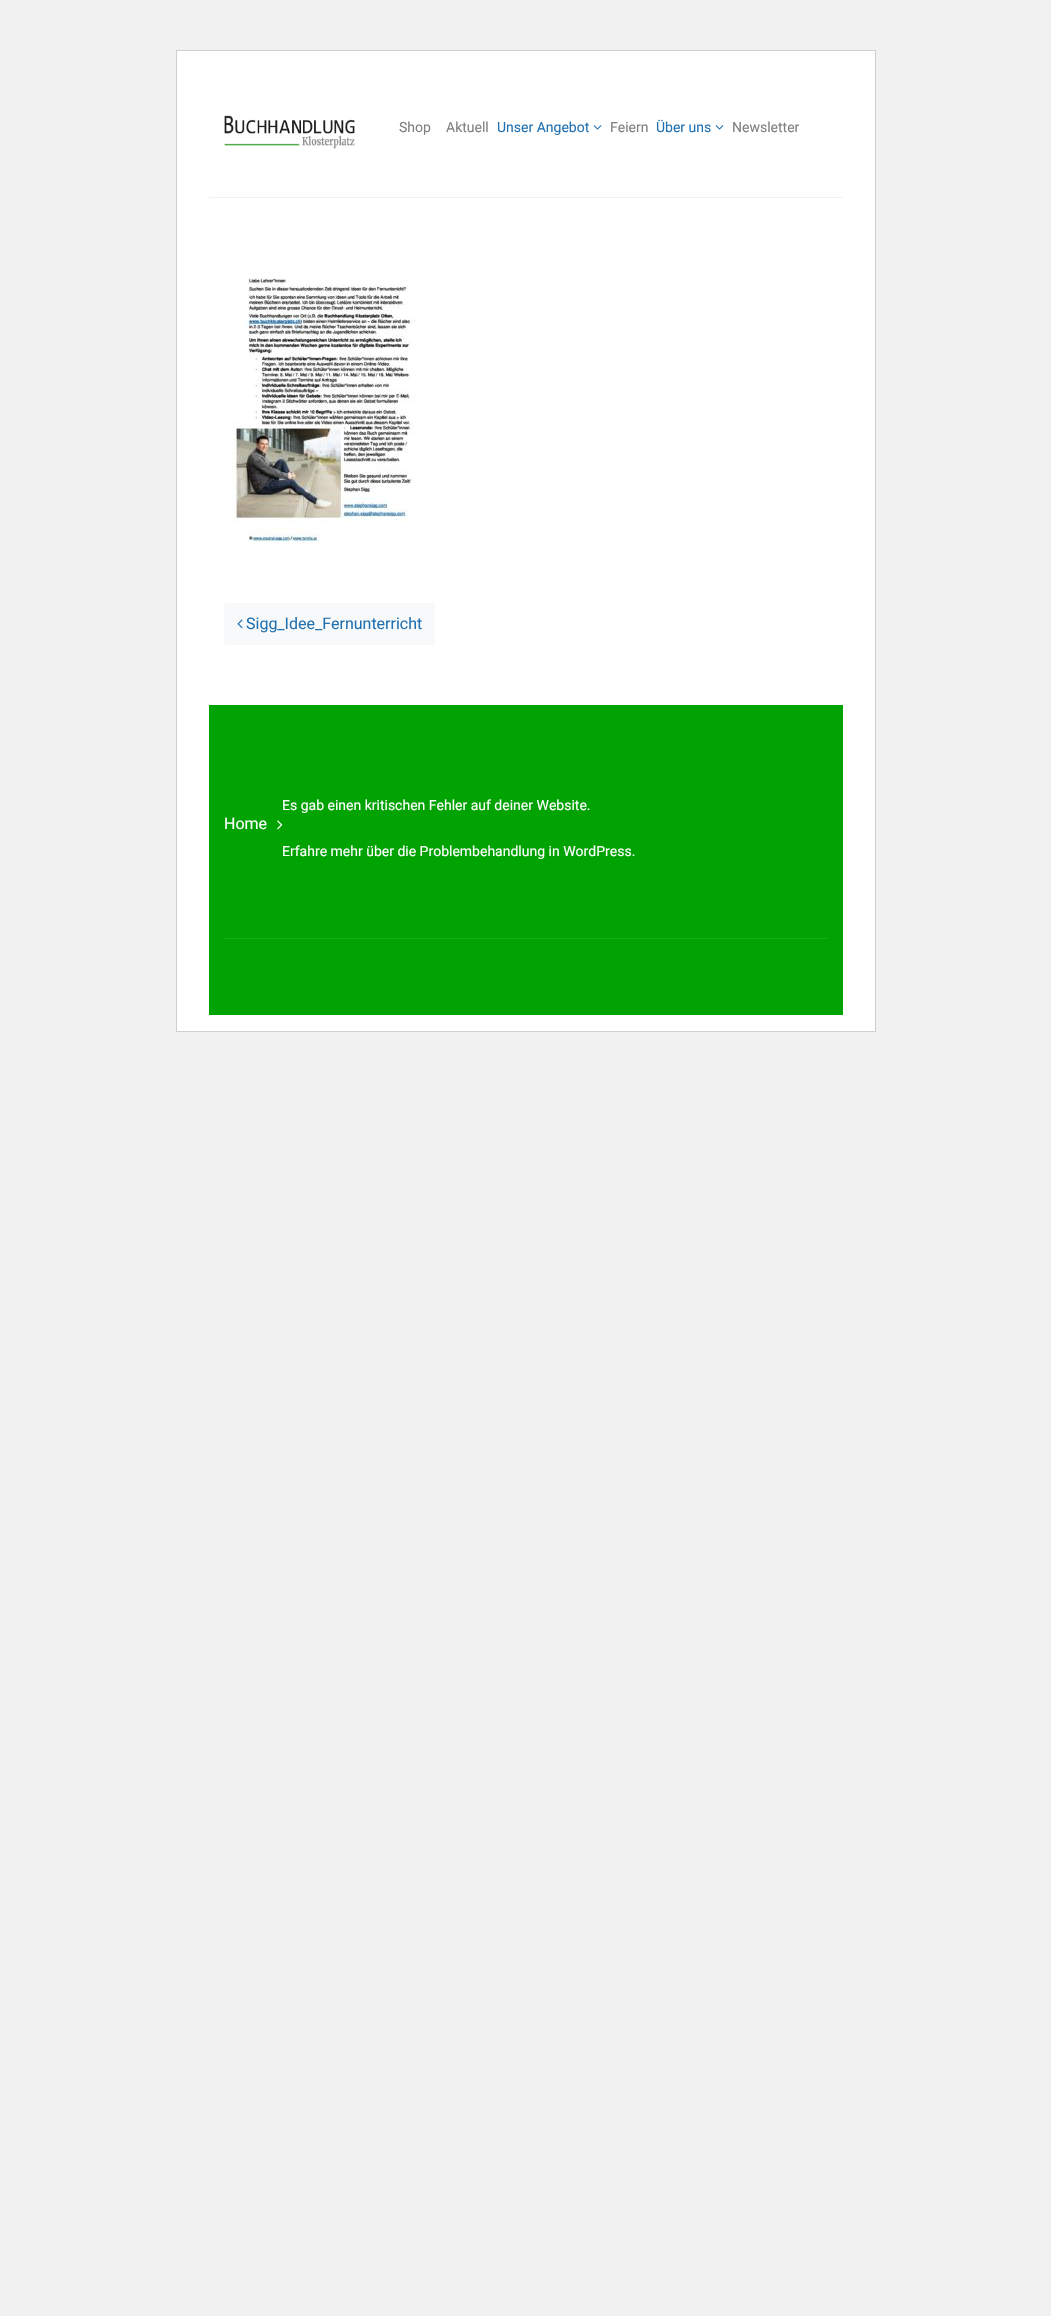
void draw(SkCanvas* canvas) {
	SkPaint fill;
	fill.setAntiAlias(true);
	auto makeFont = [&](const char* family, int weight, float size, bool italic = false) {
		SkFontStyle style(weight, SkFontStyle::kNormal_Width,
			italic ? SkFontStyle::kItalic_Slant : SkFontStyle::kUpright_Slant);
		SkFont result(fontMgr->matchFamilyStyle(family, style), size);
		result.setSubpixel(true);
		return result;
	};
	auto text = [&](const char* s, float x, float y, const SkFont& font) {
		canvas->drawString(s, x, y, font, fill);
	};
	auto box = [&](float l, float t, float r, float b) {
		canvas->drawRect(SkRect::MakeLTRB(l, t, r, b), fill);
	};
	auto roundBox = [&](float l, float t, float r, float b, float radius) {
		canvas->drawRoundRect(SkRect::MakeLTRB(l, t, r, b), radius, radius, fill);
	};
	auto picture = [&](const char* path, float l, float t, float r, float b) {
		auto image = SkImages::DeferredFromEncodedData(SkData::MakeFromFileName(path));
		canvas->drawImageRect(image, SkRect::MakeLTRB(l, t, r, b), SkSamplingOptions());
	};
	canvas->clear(0xFFF1F1F1);
	fill.setColor(0xFFFFFFFF);
	canvas->drawRect(SkRect::MakeLTRB(176.5f, 50.5f, 875.5f, 1031.5f), fill);
	fill.setStyle(SkPaint::kStroke_Style);
	fill.setStrokeWidth(1);
	fill.setColor(0xFFCCD0D4);
	canvas->drawRect(SkRect::MakeLTRB(176.5f, 50.5f, 875.5f, 1031.5f), fill);
	fill.setStyle(SkPaint::kFill_Style);
	fill.setColor(0xFFF0F2F7);
	box(209, 197, 843, 198);
	picture("image0.png", 224, 115, 355, 149);
	picture("image1.png", 593, 125, 602, 130);
	picture("image1.png", 715, 125, 724, 130);
	picture("image2.png", 232, 277, 416, 542);
	fill.setColor(0xFFF8F9FA);
	roundBox(224, 603, 435, 645, 4);
	picture("image3.png", 237, 619, 243, 629);
	fill.setColor(0xFF01A302);
	box(209, 705, 843, 1015);
	fill.setColor(0xFF1AAC1B);
	box(224, 938, 828, 939);
	picture("image4.png", 277, 820, 283, 830);
	auto font1 = makeFont("Roboto", 400, 14);
	fill.setColor(0xFF808080);
	text("Shop", 399, 132, font1);
	text("Aktuell", 446, 132, font1);
	fill.setColor(0xFF2271B1);
	text("Unser Angebot", 497, 132, font1);
	fill.setColor(0xFF808080);
	text("Feiern", 610, 132, font1);
	fill.setColor(0xFF2271B1);
	text("Über uns", 656, 132, font1);
	fill.setColor(0xFF808080);
	text("Newsletter", 732, 132, font1);
	auto font2 = makeFont("Roboto", 400, 16);
	fill.setColor(0xFF2271B1);
	text("Sigg_Idee_Fernunterricht", 246, 629, font2);
	fill.setColor(0xFFFFFFFF);
	text("Home", 224, 829, font2);
	text("Es gab einen kritischen Fehler auf deiner Website.", 282, 810, font1);
	text("Erfahre mehr über die Problembehandlung in WordPress.", 282, 856, font1);
}
